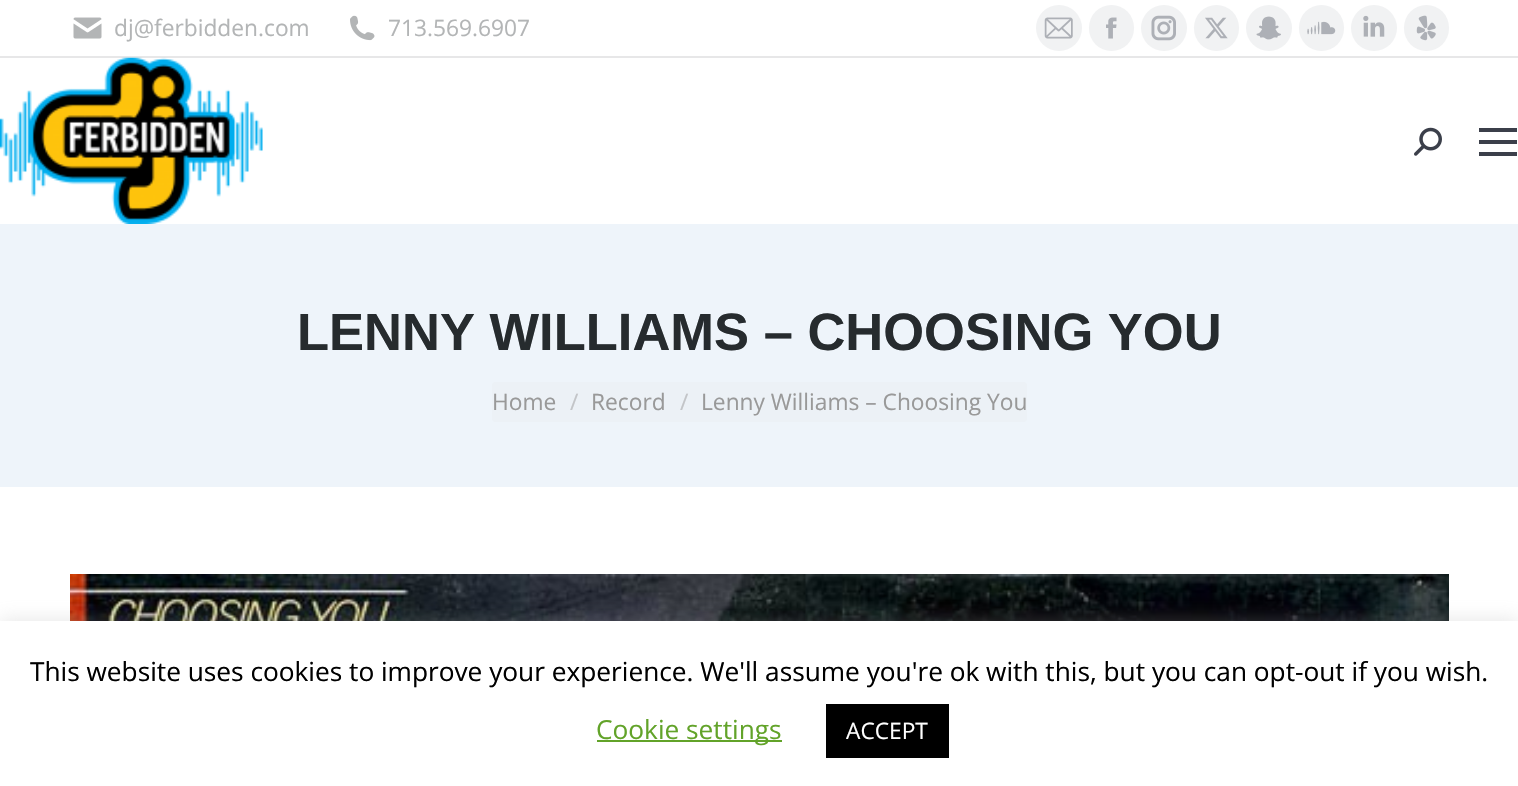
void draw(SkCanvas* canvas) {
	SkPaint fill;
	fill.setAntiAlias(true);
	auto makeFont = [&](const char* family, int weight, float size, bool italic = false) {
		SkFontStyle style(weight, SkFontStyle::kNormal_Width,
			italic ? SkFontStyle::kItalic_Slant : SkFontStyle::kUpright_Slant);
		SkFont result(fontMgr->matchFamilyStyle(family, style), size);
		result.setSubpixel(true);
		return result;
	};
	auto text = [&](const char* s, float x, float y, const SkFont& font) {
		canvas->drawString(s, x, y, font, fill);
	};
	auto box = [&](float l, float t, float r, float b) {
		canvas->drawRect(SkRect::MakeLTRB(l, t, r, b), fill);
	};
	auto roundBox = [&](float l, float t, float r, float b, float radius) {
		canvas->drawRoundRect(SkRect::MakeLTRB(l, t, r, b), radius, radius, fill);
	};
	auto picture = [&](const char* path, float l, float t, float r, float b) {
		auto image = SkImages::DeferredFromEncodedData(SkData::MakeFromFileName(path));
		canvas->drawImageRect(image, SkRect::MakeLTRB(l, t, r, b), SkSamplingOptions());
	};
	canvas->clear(0xFFFFFFFF);
	picture("image0.png", 73, 17, 102, 39);
	picture("image1.png", 350, 15, 375, 41);
	fill.setColor(0xFFF1F2F3);
	canvas->drawCircle(1059, 28, 23, fill);
	picture("image2.png", 1044, 17, 1073, 39);
	roundBox(1089, 5, 1134, 51, 22.5f);
	picture("image3.png", 1106, 17, 1117, 39);
	canvas->drawCircle(1164, 28, 23, fill);
	picture("image4.png", 1151, 15, 1176, 41);
	roundBox(1194, 5, 1239, 51, 22.5f);
	picture("image5.png", 1205, 17, 1228, 39);
	canvas->drawCircle(1269, 28, 23, fill);
	picture("image6.png", 1256, 16, 1281, 40);
	roundBox(1299, 5, 1344, 51, 22.5f);
	picture("image7.png", 1307, 21, 1336, 35);
	canvas->drawCircle(1374, 28, 23, fill);
	picture("image8.png", 1363, 15, 1385, 37);
	roundBox(1404, 5, 1449, 51, 22.5f);
	picture("image9.png", 1416, 15, 1436, 41);
	fill.setColor(0xFFE7E7E8);
	box(0, 56, 1518, 58);
	picture("image10.png", 0, 57, 263, 224);
	picture("image11.png", 1414, 127, 1442, 156);
	fill.setColor(0xFF3B3F4A);
	box(1479, 128, 1517, 132);
	box(1479, 140, 1517, 144);
	box(1479, 152, 1517, 156);
	fill.setColor(0xFFEEF4FA);
	box(0, 224, 1518, 487);
	fill.setColor(0xFFECF1F6);
	roundBox(492, 382, 1027, 422, 4);
	picture("image12.png", 70, 574, 1449, 621);
	fill.setColor(0x4DACABAB);
	fill.setMaskFilter(SkMaskFilter::MakeBlur(kNormal_SkBlurStyle, 9));
	canvas->drawRect(SkRect::MakeLTRB(0, 620, 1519, 786), fill);
	fill.setMaskFilter(nullptr);
	fill.setColor(0xFFFFFFFF);
	box(0, 621, 1518, 786);
	fill.setColor(0xFF62A329);
	box(597, 740, 782, 742);
	fill.setColor(0xFF000000);
	box(826, 704, 949, 758);
	auto font1 = makeFont("Open Sans", 400, 22.75f);
	fill.setColor(0xFFB3B5B6);
	text("dj@ferbidden.com", 114, 36, font1);
	text("713.569.6907", 388, 36, font1);
	auto font2 = makeFont("Liberation Sans", 700, 52.5f);
	fill.setColor(0xFF262B2E);
	text("LENNY WILLIAMS – CHOOSING YOU", 297, 350, font2);
	fill.setColor(0xFF999999);
	text("Home", 492, 410, font1);
	fill.setColor(0xFFC3C5C8);
	text("/", 570, 410, font1);
	fill.setColor(0xFF999999);
	text("Record", 591, 410, font1);
	fill.setColor(0xFFC3C5C8);
	text("/", 680, 410, font1);
	fill.setColor(0xFF999999);
	text("Lenny Williams – Choosing You", 701, 410, font1);
	auto font3 = makeFont("Open Sans", 400, 26.25f);
	fill.setColor(0xFF000000);
	text("This website uses cookies to improve your experience. We'll assume you're ok with this, but you can opt-out if you wish.", 30, 681, font3);
	fill.setColor(0xFF62A329);
	text("Cookie settings", 596, 739, font3);
	fill.setColor(0xFFFFFFFF);
	text("ACCEPT", 846, 739, font1);
}
